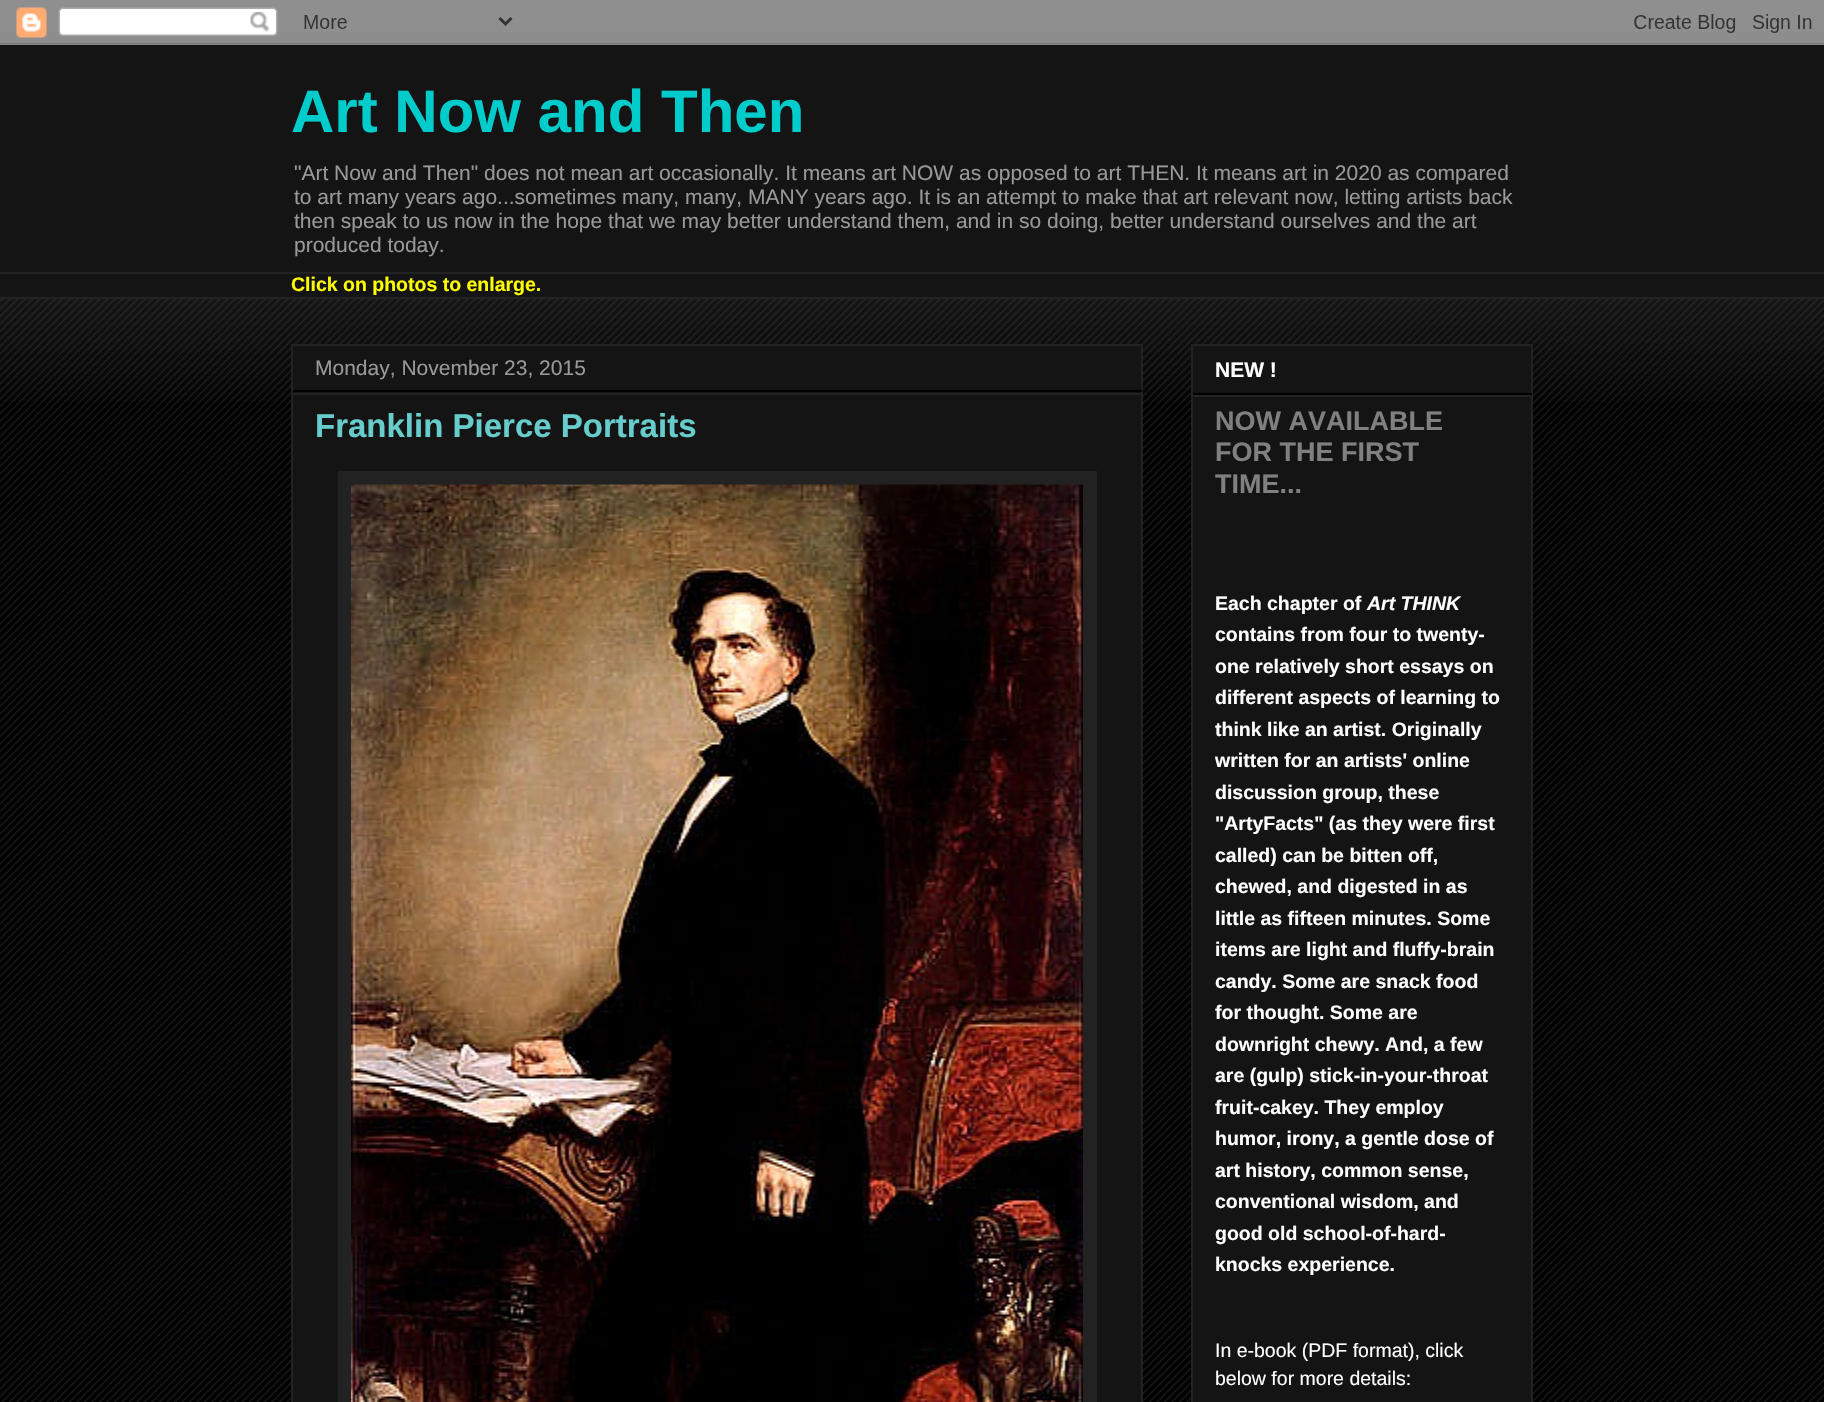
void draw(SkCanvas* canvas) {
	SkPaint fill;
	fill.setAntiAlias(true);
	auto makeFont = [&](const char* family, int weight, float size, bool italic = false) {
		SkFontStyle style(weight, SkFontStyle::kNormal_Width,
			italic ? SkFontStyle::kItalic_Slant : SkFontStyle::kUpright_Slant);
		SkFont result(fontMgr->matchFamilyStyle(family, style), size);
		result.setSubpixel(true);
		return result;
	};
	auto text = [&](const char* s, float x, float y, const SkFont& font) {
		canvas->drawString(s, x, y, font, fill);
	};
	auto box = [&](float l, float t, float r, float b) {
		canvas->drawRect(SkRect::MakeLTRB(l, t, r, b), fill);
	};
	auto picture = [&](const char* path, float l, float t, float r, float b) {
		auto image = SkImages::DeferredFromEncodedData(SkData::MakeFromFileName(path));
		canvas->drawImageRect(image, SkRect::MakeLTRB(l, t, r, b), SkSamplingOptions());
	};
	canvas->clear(0xFF000000);
	picture("image0.png", 0, 20, 1824, 1402);
	picture("image1.png", 0, 0, 1824, 402);
	picture("image2.png", 0, 0, 1824, 45);
	fill.setColor(0xFF141414);
	box(0, 45, 1824, 272);
	box(0, 274, 1824, 297);
	fill.setColor(0xFF222222);
	box(0, 272, 1824, 274);
	box(0, 297, 1824, 299);
	fill.setColor(0xFF141414);
	canvas->drawRect(SkRect::MakeLTRB(292, 345, 1142, 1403), fill);
	fill.setStyle(SkPaint::kStroke_Style);
	fill.setStrokeWidth(2);
	fill.setColor(0xFF222222);
	canvas->drawRect(SkRect::MakeLTRB(292, 345, 1142, 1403), fill);
	fill.setStyle(SkPaint::kFill_Style);
	fill.setColor(0xFF000000);
	box(293, 390, 1142, 392);
	fill.setColor(0xFF222222);
	box(293, 393, 1142, 395);
	box(338, 471, 1097, 1402);
	picture("image3.png", 351, 484, 1083, 1402);
	fill.setColor(0xFF141414);
	canvas->drawRect(SkRect::MakeLTRB(1192, 345, 1532, 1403), fill);
	fill.setStyle(SkPaint::kStroke_Style);
	fill.setColor(0xFF222222);
	canvas->drawRect(SkRect::MakeLTRB(1192, 345, 1532, 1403), fill);
	fill.setStyle(SkPaint::kFill_Style);
	fill.setColor(0xFF000000);
	box(1193, 393, 1532, 395);
	fill.setColor(0xFF222222);
	box(1193, 395, 1532, 397);
	auto font1 = makeFont("Liberation Sans", 700, 60);
	fill.setColor(0xFF00CCCC);
	text("Art Now and Then", 291, 132, font1);
	auto font2 = makeFont("Liberation Sans", 400, 21);
	fill.setColor(0xFF999999);
	text("\"Art Now and Then\" does not mean art occasionally. It means art NOW as opposed to art THEN. It means art in 2020 as compared", 294, 180, font2);
	text("to art many years ago...sometimes many, many, MANY years ago. It is an attempt to make that art relevant now, letting artists back", 294, 204, font2);
	text("then speak to us now in the hope that we may better understand them, and in so doing, better understand ourselves and the art", 294, 228, font2);
	text("produced today.", 294, 252, font2);
	auto font3 = makeFont("Liberation Sans", 700, 19.5f);
	fill.setColor(0xFFFFFF00);
	text("Click on photos to enlarge.", 291, 291, font3);
	fill.setColor(0xFF999999);
	text("Monday, November 23, 2015", 315, 375, font2);
	auto font4 = makeFont("Liberation Sans", 700, 33);
	fill.setColor(0xFF66CCCC);
	text("Franklin Pierce Portraits", 315, 437, font4);
	auto font5 = makeFont("Liberation Sans", 700, 21);
	fill.setColor(0xFFFFFFFF);
	text("NEW !", 1215, 377, font5);
	auto font6 = makeFont("Liberation Sans", 700, 27);
	fill.setColor(0xFF808080);
	text("NOW AVAILABLE", 1215, 430, font6);
	text("FOR THE FIRST", 1215, 461, font6);
	text("TIME...", 1215, 493, font6);
	fill.setColor(0xFFFFFFFF);
	text("Each chapter of", 1215, 610, font3);
	auto font7 = makeFont("Liberation Sans", 700, 19.5f, true);
	text("Art THINK", 1367, 610, font7);
	text("contains from four to twenty-", 1215, 641, font3);
	text("one relatively short essays on", 1215, 673, font3);
	text("different aspects of learning to", 1215, 704, font3);
	text("think like an artist. Originally", 1215, 736, font3);
	text("written for an artists' online", 1215, 767, font3);
	text("discussion group, these", 1215, 799, font3);
	text("\"ArtyFacts\" (as they were first", 1215, 830, font3);
	text("called) can be bitten off,", 1215, 862, font3);
	text("chewed, and digested in as", 1215, 893, font3);
	text("little as fifteen minutes. Some", 1215, 925, font3);
	text("items are light and fluffy-brain", 1215, 956, font3);
	text("candy. Some are snack food", 1215, 988, font3);
	text("for thought. Some are", 1215, 1019, font3);
	text("downright chewy. And, a few", 1215, 1051, font3);
	text("are (gulp) stick-in-your-throat", 1215, 1082, font3);
	text("fruit-cakey. They employ", 1215, 1114, font3);
	text("humor, irony, a gentle dose of", 1215, 1145, font3);
	text("art history, common sense,", 1215, 1177, font3);
	text("conventional wisdom, and", 1215, 1208, font3);
	text("good old school-of-hard-", 1215, 1240, font3);
	text("knocks experience.", 1215, 1271, font3);
	auto font8 = makeFont("Liberation Sans", 400, 19.5f);
	text("In e-book (PDF format), click", 1215, 1357, font8);
	text("below for more details:", 1215, 1385, font8);
}
